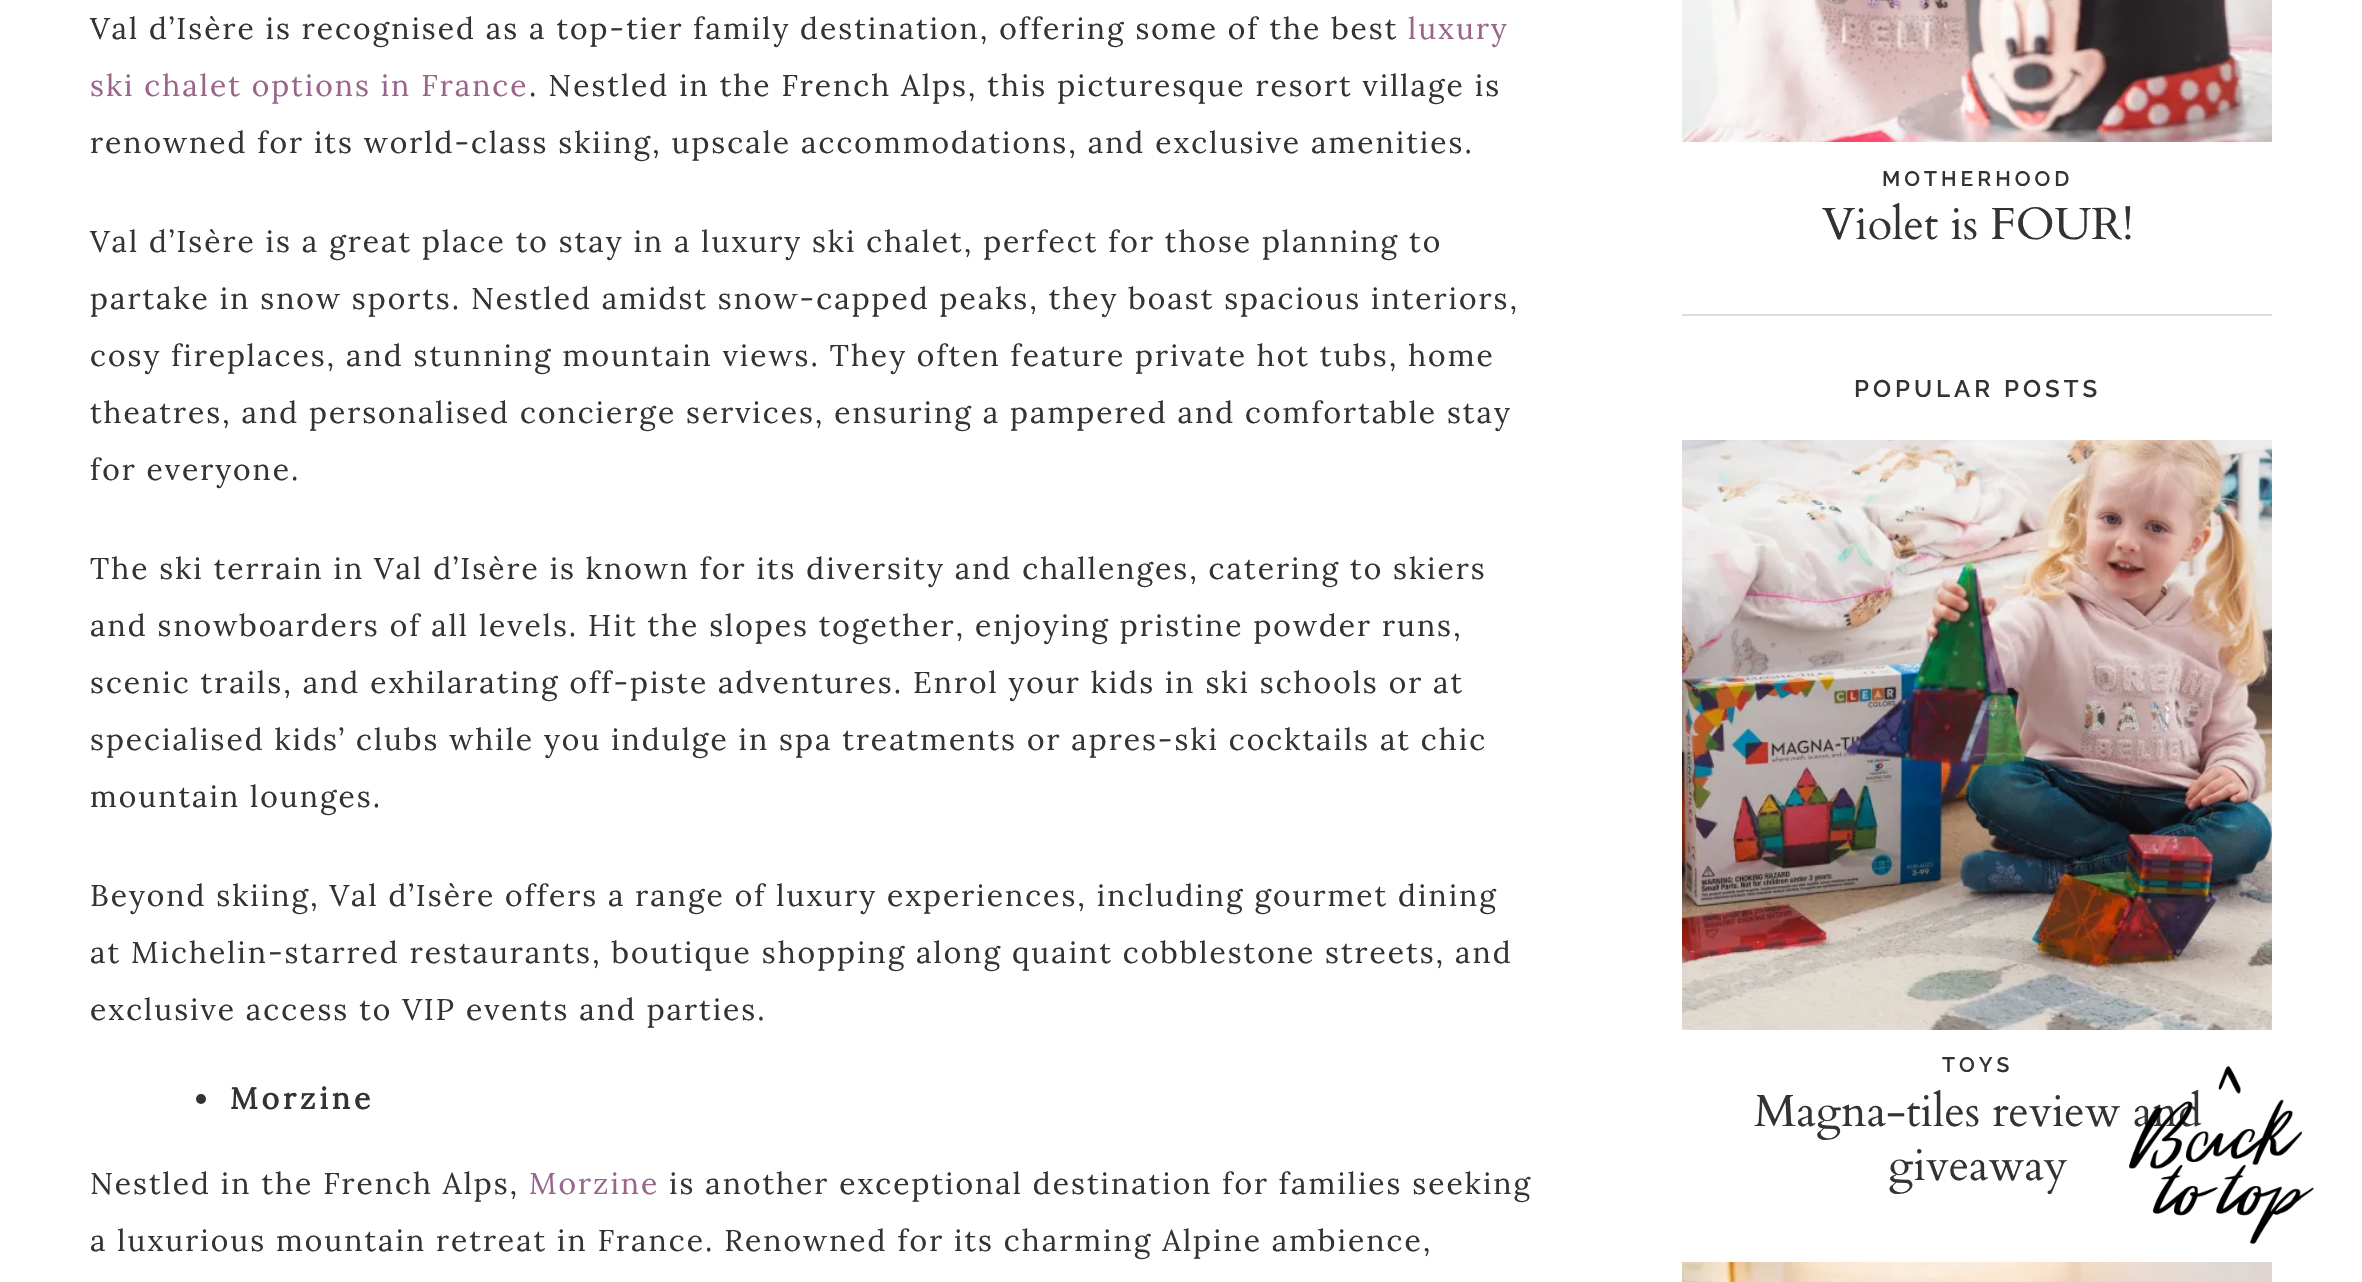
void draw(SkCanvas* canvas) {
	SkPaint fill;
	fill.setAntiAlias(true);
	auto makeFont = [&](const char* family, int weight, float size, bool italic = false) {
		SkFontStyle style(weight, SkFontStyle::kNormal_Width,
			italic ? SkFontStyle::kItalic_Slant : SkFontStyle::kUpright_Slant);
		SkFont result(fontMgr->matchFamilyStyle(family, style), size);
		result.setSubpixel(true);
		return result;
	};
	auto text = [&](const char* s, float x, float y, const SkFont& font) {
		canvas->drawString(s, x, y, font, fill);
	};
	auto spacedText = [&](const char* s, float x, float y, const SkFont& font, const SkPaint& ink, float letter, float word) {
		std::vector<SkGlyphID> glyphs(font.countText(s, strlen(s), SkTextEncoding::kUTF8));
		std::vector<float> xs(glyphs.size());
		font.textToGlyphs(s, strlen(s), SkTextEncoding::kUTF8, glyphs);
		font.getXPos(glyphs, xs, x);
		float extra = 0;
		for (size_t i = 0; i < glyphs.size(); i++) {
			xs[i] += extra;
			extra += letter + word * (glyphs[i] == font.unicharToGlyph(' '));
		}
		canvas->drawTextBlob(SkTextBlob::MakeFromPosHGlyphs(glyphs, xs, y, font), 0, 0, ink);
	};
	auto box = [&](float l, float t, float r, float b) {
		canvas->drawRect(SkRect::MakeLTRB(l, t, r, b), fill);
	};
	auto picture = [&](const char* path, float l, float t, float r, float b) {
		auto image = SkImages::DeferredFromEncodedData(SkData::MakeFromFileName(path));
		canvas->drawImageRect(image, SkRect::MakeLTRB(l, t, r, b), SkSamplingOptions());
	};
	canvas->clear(0xFFFFFFFF);
	fill.setColor(0xFF333333);
	canvas->drawCircle(201, 1099, 5, fill);
	fill.setColor(0xFFDDDDDD);
	box(1682, 314, 2272, 316);
	picture("image0.png", 1682, 0, 2272, 142);
	picture("image1.png", 1682, 440, 2272, 1030);
	picture("image2.png", 1682, 1262, 2272, 1282);
	auto font1 = makeFont("Lora", 400, 30);
	fill.setColor(0xFF333333);
	spacedText("Val d’Isère is recognised as a top-tier family destination, offering some of the best", 90, 39, font1, fill, 2, 0);
	fill.setColor(0xFF9A648B);
	spacedText("luxury", 1408, 39, font1, fill, 2, 0);
	spacedText("ski chalet options in France", 90, 96, font1, fill, 2, 0);
	fill.setColor(0xFF333333);
	spacedText(". Nestled in the French Alps, this picturesque resort village is", 529, 96, font1, fill, 2, 0);
	spacedText("renowned for its world-class skiing, upscale accommodations, and exclusive amenities.", 90, 153, font1, fill, 2, 0);
	spacedText("Val d’Isère is a great place to stay in a luxury ski chalet, perfect for those planning to", 90, 252, font1, fill, 2, 0);
	spacedText("partake in snow sports. Nestled amidst snow-capped peaks, they boast spacious interiors,", 90, 309, font1, fill, 2, 0);
	spacedText("cosy fireplaces, and stunning mountain views. They often feature private hot tubs, home", 90, 366, font1, fill, 2, 0);
	spacedText("theatres, and personalised concierge services, ensuring a pampered and comfortable stay", 90, 423, font1, fill, 2, 0);
	spacedText("for everyone.", 90, 480, font1, fill, 2, 0);
	spacedText("The ski terrain in Val d’Isère is known for its diversity and challenges, catering to skiers", 90, 579, font1, fill, 2, 0);
	spacedText("and snowboarders of all levels. Hit the slopes together, enjoying pristine powder runs,", 90, 636, font1, fill, 2, 0);
	spacedText("scenic trails, and exhilarating off-piste adventures. Enrol your kids in ski schools or at", 90, 693, font1, fill, 2, 0);
	spacedText("specialised kids’ clubs while you indulge in spa treatments or apres-ski cocktails at chic", 90, 750, font1, fill, 2, 0);
	spacedText("mountain lounges.", 90, 807, font1, fill, 2, 0);
	spacedText("Beyond skiing, Val d’Isère offers a range of luxury experiences, including gourmet dining", 90, 906, font1, fill, 2, 0);
	spacedText("at Michelin-starred restaurants, boutique shopping along quaint cobblestone streets, and", 90, 963, font1, fill, 2, 0);
	spacedText("exclusive access to VIP events and parties.", 90, 1020, font1, fill, 2, 0);
	auto font2 = makeFont("Lora", 700, 30);
	spacedText("Morzine", 230, 1109, font2, fill, 4, 0);
	spacedText("Nestled in the French Alps,", 90, 1194, font1, fill, 2, 0);
	fill.setColor(0xFF9A648B);
	spacedText("Morzine", 529, 1194, font1, fill, 2, 0);
	fill.setColor(0xFF333333);
	spacedText("is another exceptional destination for families seeking", 669, 1194, font1, fill, 2, 0);
	spacedText("a luxurious mountain retreat in France. Renowned for its charming Alpine ambience,", 90, 1251, font1, fill, 2, 0);
	auto font3 = makeFont("Raleway", 600, 21);
	spacedText("MOTHERHOOD", 1882, 186, font3, fill, 4, 0);
	auto font4 = makeFont("Cardo", 400, 45);
	text("Violet is FOUR!", 1822, 239, font4);
	auto font5 = makeFont("Raleway", 600, 24);
	spacedText("POPULAR POSTS", 1854, 397, font5, fill, 4, 0);
	spacedText("TOYS", 1942, 1072, font3, fill, 4, 0);
	text("Magna-tiles review and", 1754, 1126, font4);
	text("giveaway", 1888, 1180, font4);
	picture("image3.png", 2129, 1066, 2314, 1244);
}
